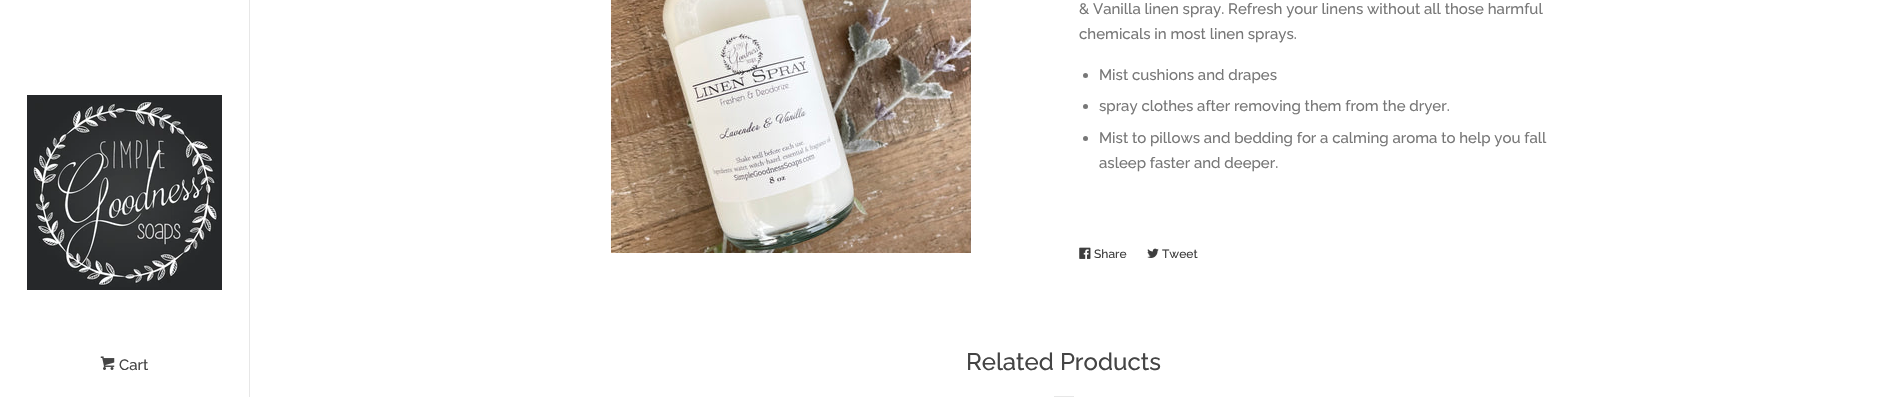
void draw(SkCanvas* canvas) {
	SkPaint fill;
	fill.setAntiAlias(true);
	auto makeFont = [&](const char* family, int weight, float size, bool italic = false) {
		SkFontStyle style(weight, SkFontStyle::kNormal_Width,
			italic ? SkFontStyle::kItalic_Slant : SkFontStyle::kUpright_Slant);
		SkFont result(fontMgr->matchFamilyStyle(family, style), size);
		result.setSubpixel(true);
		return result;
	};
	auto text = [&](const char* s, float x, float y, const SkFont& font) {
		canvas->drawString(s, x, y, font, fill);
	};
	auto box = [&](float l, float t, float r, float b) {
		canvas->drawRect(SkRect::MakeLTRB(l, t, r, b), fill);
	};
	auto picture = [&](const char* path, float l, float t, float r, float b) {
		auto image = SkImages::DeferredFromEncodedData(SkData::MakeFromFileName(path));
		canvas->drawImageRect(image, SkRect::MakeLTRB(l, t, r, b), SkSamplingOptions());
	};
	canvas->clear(0xFFFFFFFF);
	fill.setColor(0xFFE7E7E7);
	box(249, 0, 250, 397);
	picture("image0.png", 27, 95, 222, 290);
	picture("image1.png", 100, 356, 115, 370);
	picture("image2.png", 611, 0, 971, 253);
	fill.setColor(0xFF777777);
	canvas->drawCircle(1085.5f, 75.5f, 2.5f, fill);
	canvas->drawCircle(1085.5f, 106.5f, 2.5f, fill);
	canvas->drawCircle(1085.5f, 138.5f, 2.5f, fill);
	picture("image3.png", 1079, 247, 1091, 259);
	picture("image4.png", 1147, 248, 1159, 258);
	fill.setColor(0xFFE7E7E7);
	box(1054, 396, 1074, 397);
	auto font1 = makeFont("Raleway", 500, 15);
	fill.setColor(0xFF444444);
	text("Cart", 119, 370, font1);
	fill.setColor(0xFF777777);
	text("& Vanilla linen spray. Refresh your linens without all those harmful", 1079, 14, font1);
	text("chemicals in most linen sprays.", 1079, 39, font1);
	text("Mist cushions and drapes", 1099, 80, font1);
	text("spray clothes after removing them from the dryer.", 1099, 111, font1);
	text("Mist to pillows and bedding for a calming aroma to help you fall", 1099, 143, font1);
	text("asleep faster and deeper.", 1099, 168, font1);
	auto font2 = makeFont("Raleway", 500, 12);
	fill.setColor(0xFF3E3E3E);
	text("Share", 1094, 258, font2);
	text("Tweet", 1162, 258, font2);
	auto font3 = makeFont("Raleway", 500, 24);
	fill.setColor(0xFF444444);
	text("Related Products", 966, 370, font3);
}
